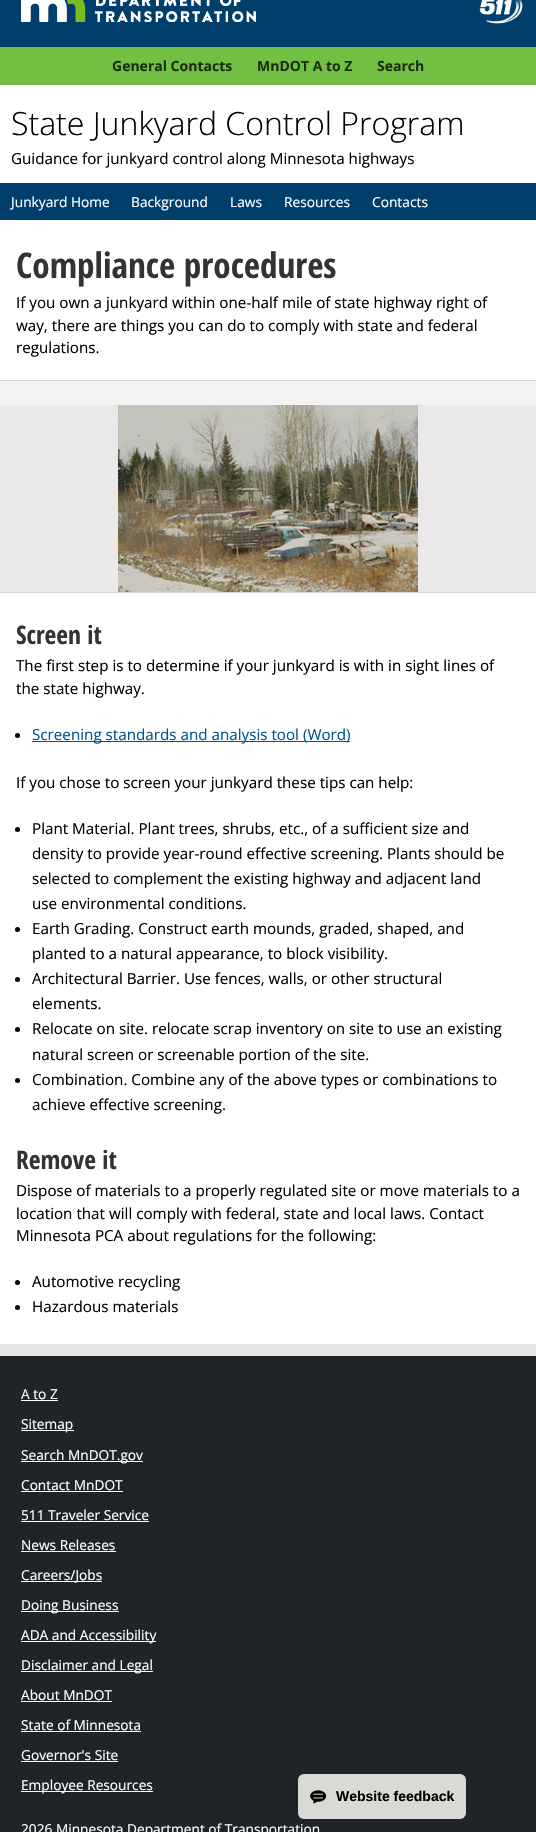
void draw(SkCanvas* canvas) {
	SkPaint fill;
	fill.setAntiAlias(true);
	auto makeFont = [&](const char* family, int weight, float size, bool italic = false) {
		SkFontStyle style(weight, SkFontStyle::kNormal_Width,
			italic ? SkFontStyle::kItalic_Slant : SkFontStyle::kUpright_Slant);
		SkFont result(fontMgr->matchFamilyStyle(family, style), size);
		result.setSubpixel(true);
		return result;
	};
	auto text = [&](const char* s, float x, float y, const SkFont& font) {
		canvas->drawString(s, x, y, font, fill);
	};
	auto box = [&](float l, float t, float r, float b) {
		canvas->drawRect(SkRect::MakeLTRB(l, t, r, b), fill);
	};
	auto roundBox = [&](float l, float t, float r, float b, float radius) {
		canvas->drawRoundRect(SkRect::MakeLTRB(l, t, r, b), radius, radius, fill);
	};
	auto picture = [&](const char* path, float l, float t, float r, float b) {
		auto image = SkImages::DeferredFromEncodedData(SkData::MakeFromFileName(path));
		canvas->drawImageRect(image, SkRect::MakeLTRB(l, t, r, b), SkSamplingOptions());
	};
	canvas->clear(0xFF202328);
	fill.setColor(0xFF003F6B);
	box(0, 0, 536, 47);
	picture("image0.png", 21, 0, 256, 22);
	picture("image1.png", 479, 0, 523, 24);
	fill.setColor(0xFF72BF44);
	box(0, 47, 536, 85);
	fill.setColor(0xFFFFFFFF);
	box(0, 85, 536, 183);
	fill.setColor(0xFF003F6B);
	box(0, 183, 536, 220);
	fill.setColor(0xFFE7E7E7);
	box(0, 1344, 536, 1356);
	fill.setColor(0xFFFFFFFF);
	box(0, 220, 536, 1344);
	fill.setColor(0xFFEAE8E9);
	box(0, 405, 536, 592);
	picture("image2.png", 118, 405, 418, 592);
	fill.setStyle(SkPaint::kStroke_Style);
	fill.setStrokeWidth(1);
	fill.setColor(0xFFD4D4D4);
	canvas->drawRect(SkRect::MakeLTRB(-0.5f, 380.5f, 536.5f, 592.5f), fill);
	fill.setStyle(SkPaint::kFill_Style);
	fill.setColor(0xFFF3F3F3);
	box(0, 381, 536, 405);
	fill.setColor(0xFF000000);
	canvas->drawCircle(17.5f, 735.5f, 2.5f, fill);
	fill.setColor(0xFF00558E);
	box(32, 741, 350, 742);
	fill.setColor(0xFF000000);
	canvas->drawCircle(17.5f, 829.5f, 2.5f, fill);
	canvas->drawCircle(17.5f, 929.5f, 2.5f, fill);
	canvas->drawCircle(17.5f, 979.5f, 2.5f, fill);
	canvas->drawCircle(17.5f, 1029.5f, 2.5f, fill);
	canvas->drawCircle(17.5f, 1080.5f, 2.5f, fill);
	canvas->drawCircle(17.5f, 1282.5f, 2.5f, fill);
	canvas->drawCircle(17.5f, 1307.5f, 2.5f, fill);
	fill.setColor(0xFFFFFFFF);
	box(21, 1400, 58, 1401);
	box(21, 1430, 74, 1431);
	box(21, 1461, 143, 1462);
	box(21, 1491, 123, 1492);
	box(21, 1521, 149, 1522);
	box(21, 1551, 116, 1552);
	box(21, 1581, 102, 1582);
	box(21, 1611, 119, 1612);
	box(21, 1641, 156, 1642);
	box(21, 1671, 153, 1672);
	box(21, 1701, 112, 1702);
	box(21, 1731, 141, 1732);
	box(21, 1761, 118, 1762);
	box(21, 1791, 153, 1792);
	fill.setColor(0xFFD9D9D6);
	roundBox(298, 1774, 466, 1819, 6);
	picture("image3.png", 310, 1790, 326, 1804);
	auto font1 = makeFont("Open Sans", 700, 14);
	fill.setColor(0xFF1C3011);
	text("General Contacts", 112, 71, font1);
	text("MnDOT A to Z", 257, 71, font1);
	text("Search", 377, 71, font1);
	auto font2 = makeFont("Open Sans", 300, 32);
	fill.setColor(0xFF000000);
	text("State Junkyard Control Program", 11, 135, font2);
	auto font3 = makeFont("Open Sans", 400, 15.2f);
	text("Guidance for junkyard control along Minnesota highways", 11, 164, font3);
	auto font4 = makeFont("Open Sans", 400, 13.75f);
	fill.setColor(0xFFFFFFFF);
	text("Junkyard Home", 11, 207, font4);
	text("Background", 131, 207, font4);
	text("Laws", 230, 207, font4);
	text("Resources", 284, 207, font4);
	text("Contacts", 372, 207, font4);
	auto font5 = makeFont("Open Sans Condensed", 700, 35.25f);
	fill.setColor(0xFF343333);
	text("Compliance procedures", 16, 278, font5);
	fill.setColor(0xFF000000);
	text("If you own a junkyard within one-half mile of state highway right of", 16, 308, font3);
	text("way, there are things you can do to comply with state and federal", 16, 331, font3);
	text("regulations.", 16, 353, font3);
	auto font6 = makeFont("Open Sans Condensed", 700, 25.5f);
	fill.setColor(0xFF343333);
	text("Screen it", 16, 644, font6);
	fill.setColor(0xFF000000);
	text("The first step is to determine if your junkyard is with in sight lines of", 16, 671, font3);
	text("the state highway.", 16, 694, font3);
	fill.setColor(0xFF00558E);
	text("Screening standards and analysis tool (Word)", 32, 740, font3);
	fill.setColor(0xFF000000);
	text("If you chose to screen your junkyard these tips can help:", 16, 788, font3);
	text("Plant Material. Plant trees, shrubs, etc., of a sufficient size and", 32, 834, font3);
	text("density to provide year-round effective screening. Plants should be", 32, 859, font3);
	text("selected to complement the existing highway and adjacent land", 32, 884, font3);
	text("use environmental conditions.", 32, 909, font3);
	text("Earth Grading. Construct earth mounds, graded, shaped, and", 32, 934, font3);
	text("planted to a natural appearance, to block visibility.", 32, 959, font3);
	text("Architectural Barrier. Use fences, walls, or other structural", 32, 984, font3);
	text("elements.", 32, 1009, font3);
	text("Relocate on site. relocate scrap inventory on site to use an existing", 32, 1034, font3);
	text("natural screen or screenable portion of the site.", 32, 1060, font3);
	text("Combination. Combine any of the above types or combinations to", 32, 1085, font3);
	text("achieve effective screening.", 32, 1110, font3);
	fill.setColor(0xFF343333);
	text("Remove it", 16, 1169, font6);
	fill.setColor(0xFF000000);
	text("Dispose of materials to a properly regulated site or move materials to a", 16, 1196, font3);
	text("location that will comply with federal, state and local laws. Contact", 16, 1219, font3);
	text("Minnesota PCA about regulations for the following:", 16, 1241, font3);
	text("Automotive recycling", 32, 1287, font3);
	text("Hazardous materials", 32, 1312, font3);
	auto font7 = makeFont("Open Sans", 400, 13.7f);
	fill.setColor(0xFFFFFFFF);
	text("A to Z", 21, 1399, font7);
	text("Sitemap", 21, 1429, font7);
	text("Search MnDOT.gov", 21, 1460, font7);
	text("Contact MnDOT", 21, 1490, font7);
	text("511 Traveler Service", 21, 1520, font7);
	text("News Releases", 21, 1550, font7);
	text("Careers/Jobs", 21, 1580, font7);
	text("Doing Business", 21, 1610, font7);
	text("ADA and Accessibility", 21, 1640, font7);
	text("Disclaimer and Legal", 21, 1670, font7);
	text("About MnDOT", 21, 1700, font7);
	text("State of Minnesota", 21, 1730, font7);
	text("Governor's Site", 21, 1760, font7);
	text("Employee Resources", 21, 1790, font7);
	text("2026 Minnesota Department of Transportation", 21, 1834, font7);
	auto font8 = makeFont("Liberation Sans", 700, 14);
	fill.setColor(0xFF000000);
	text("Website feedback", 336, 1801, font8);
}
